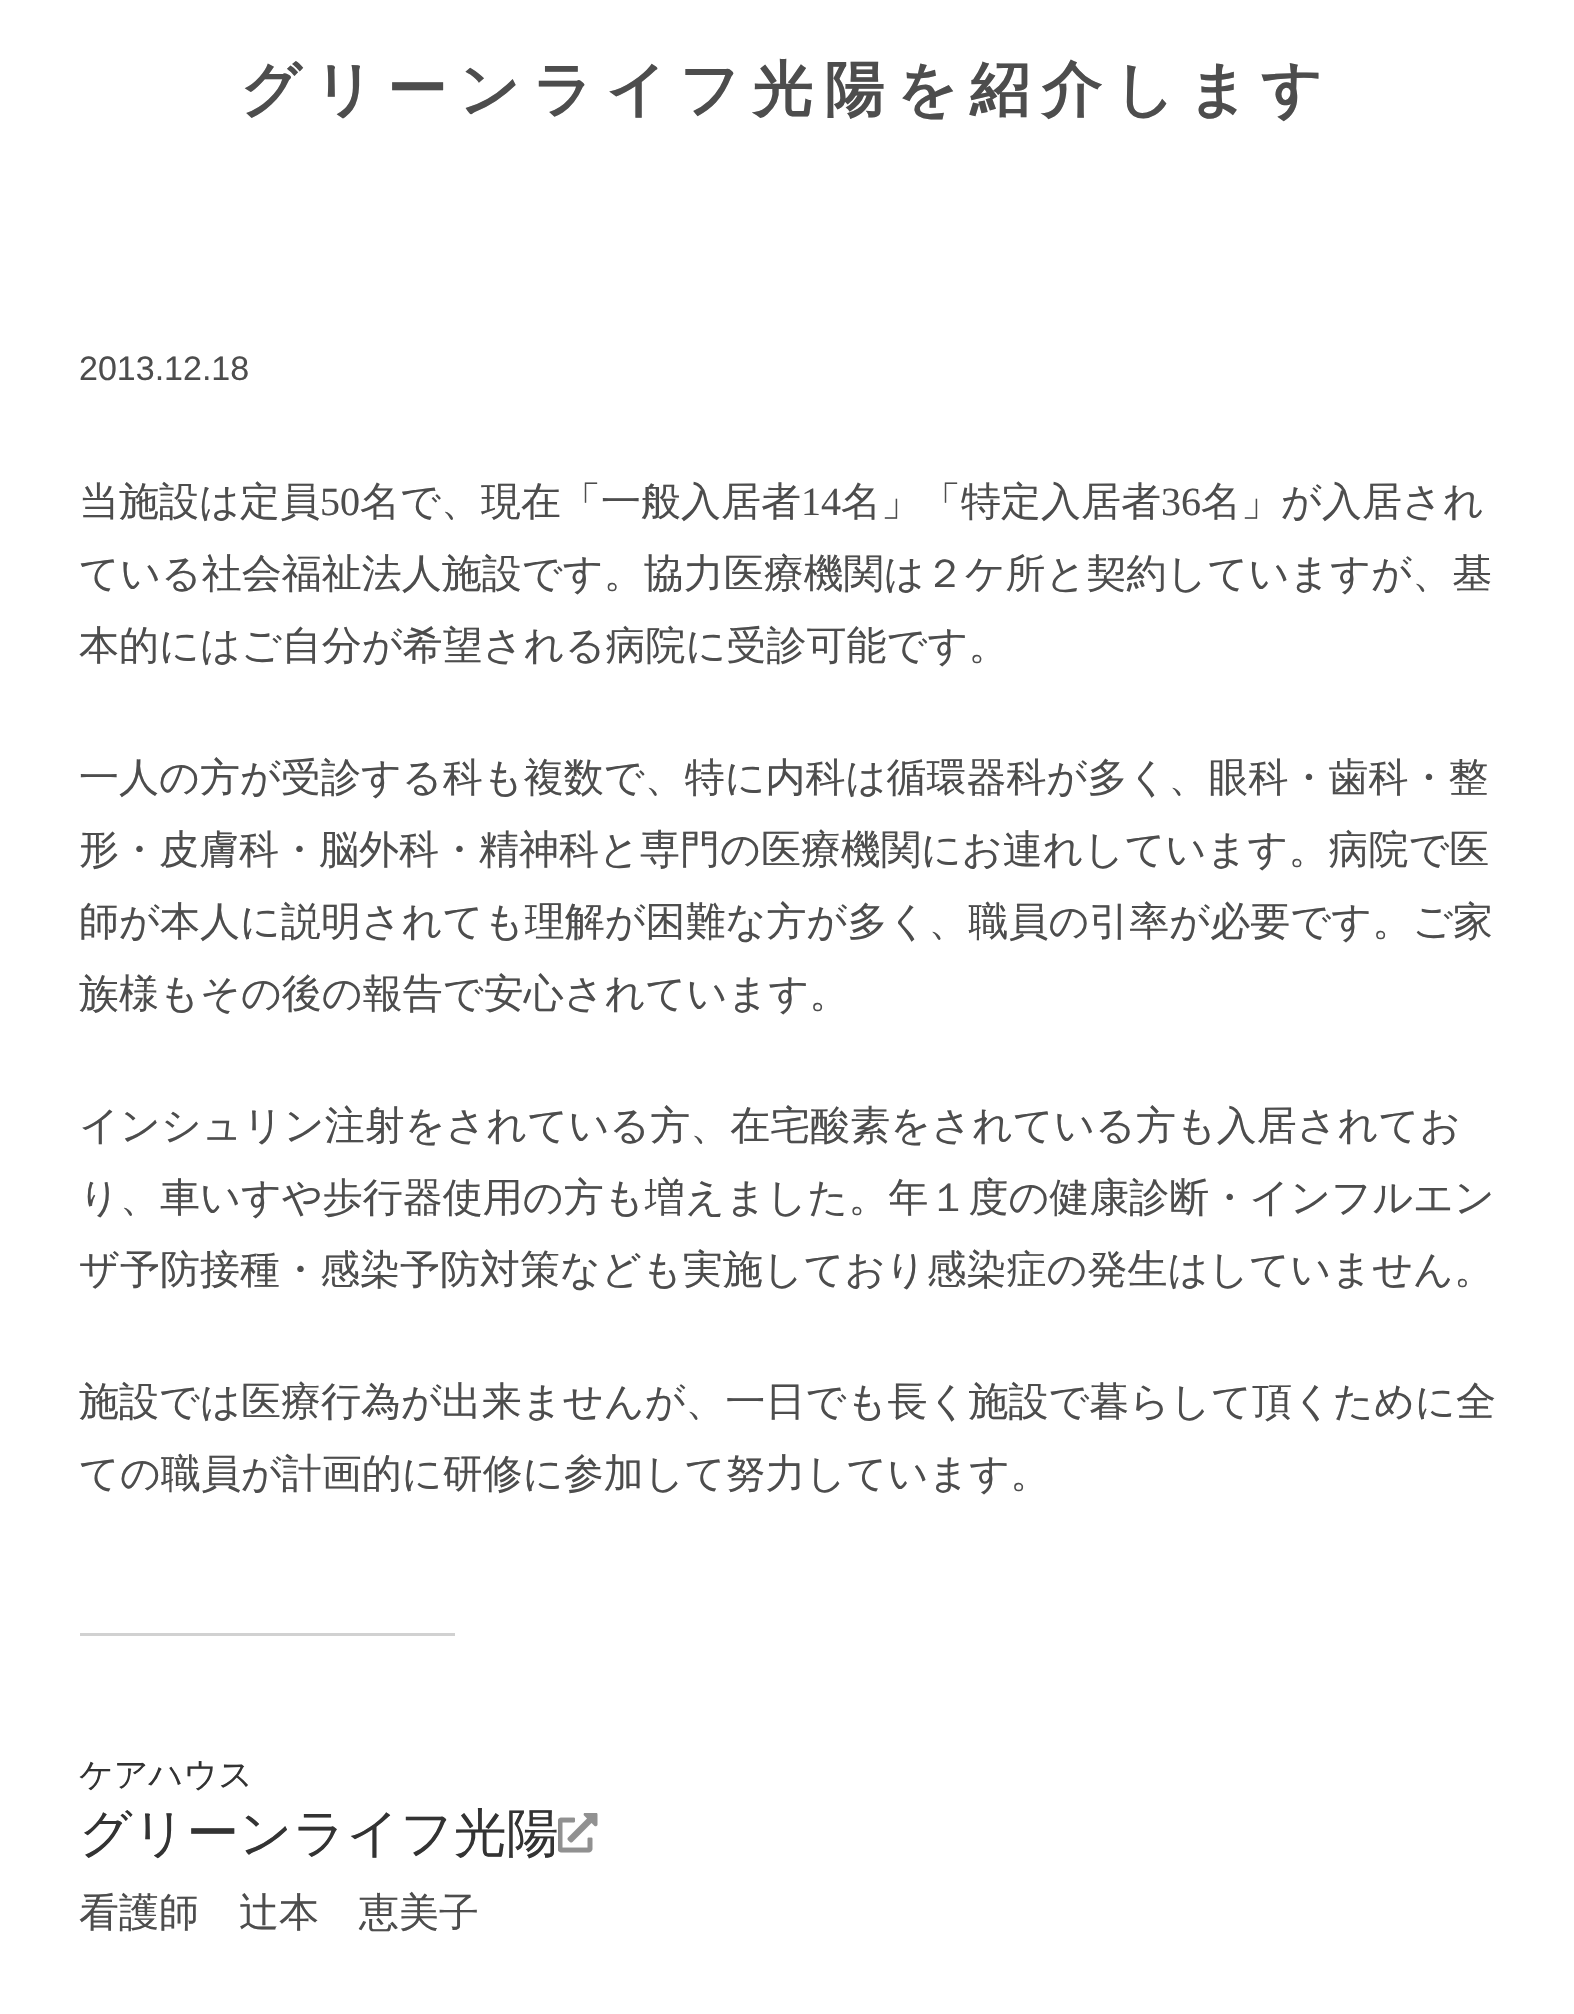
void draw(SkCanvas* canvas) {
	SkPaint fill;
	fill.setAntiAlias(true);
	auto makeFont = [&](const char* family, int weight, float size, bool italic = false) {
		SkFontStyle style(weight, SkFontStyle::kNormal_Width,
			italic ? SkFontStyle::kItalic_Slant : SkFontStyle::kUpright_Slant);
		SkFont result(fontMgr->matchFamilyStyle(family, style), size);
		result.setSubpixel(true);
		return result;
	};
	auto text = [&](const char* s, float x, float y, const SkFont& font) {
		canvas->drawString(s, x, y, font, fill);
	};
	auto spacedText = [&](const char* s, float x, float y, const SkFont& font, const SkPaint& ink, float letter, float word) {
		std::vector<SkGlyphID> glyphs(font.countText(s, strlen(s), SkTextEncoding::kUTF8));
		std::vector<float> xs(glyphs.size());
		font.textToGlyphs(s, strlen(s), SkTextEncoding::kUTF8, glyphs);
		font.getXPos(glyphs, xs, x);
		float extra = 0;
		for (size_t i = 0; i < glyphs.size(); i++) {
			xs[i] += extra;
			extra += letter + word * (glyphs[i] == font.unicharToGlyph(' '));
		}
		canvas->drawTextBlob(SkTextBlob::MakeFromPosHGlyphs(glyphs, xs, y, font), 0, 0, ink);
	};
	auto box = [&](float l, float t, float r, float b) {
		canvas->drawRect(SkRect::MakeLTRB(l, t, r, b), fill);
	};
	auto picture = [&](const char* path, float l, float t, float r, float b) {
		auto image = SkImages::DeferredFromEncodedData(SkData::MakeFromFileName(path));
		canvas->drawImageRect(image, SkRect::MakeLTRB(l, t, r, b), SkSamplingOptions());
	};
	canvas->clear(0xFFFFFFFF);
	fill.setColor(0xFFD1D1D1);
	box(80, 1633, 455, 1636);
	picture("image0.png", 558, 1813, 598, 1853);
	auto font1 = makeFont("WenQuanYi Zen Hei", 700, 60);
	fill.setColor(0xFF4D4D4D);
	spacedText("グリーンライフ光陽を紹介します", 240, 110, font1, fill, 12, 0);
	auto font2 = makeFont("Liberation Sans", 400, 34);
	text("2013.12.18", 79, 380, font2);
	auto font3 = makeFont("WenQuanYi Zen Hei", 500, 40);
	text("当施設は定員", 79, 515, font3);
	auto font4 = makeFont("Liberation Serif", 400, 40);
	text("50", 320, 515, font4);
	text("名で、現在「一般入居者", 360, 515, font3);
	text("14", 801, 515, font4);
	text("名」「特定入居者", 841, 515, font3);
	text("36", 1161, 515, font4);
	text("名」が入居され", 1201, 515, font3);
	text("ている社会福祉法人施設です。協力医療機関は２ケ所と契約していますが、基", 79, 587, font3);
	text("本的にはご自分が希望される病院に受診可能です。", 79, 659, font3);
	text("一人の方が受診する科も複数で、特に内科は循環器科が多く、眼科・歯科・整", 79, 791, font3);
	text("形・皮膚科・脳外科・精神科と専門の医療機関にお連れしています。病院で医", 79, 863, font3);
	text("師が本人に説明されても理解が困難な方が多く、職員の引率が必要です。ご家", 79, 935, font3);
	text("族様もその後の報告で安心されています。", 79, 1007, font3);
	text("インシュリン注射をされている方、在宅酸素をされている方も入居されてお", 79, 1139, font3);
	text("り、車いすや歩行器使用の方も増えました。年１度の健康診断・インフルエン", 79, 1211, font3);
	text("ザ予防接種・感染予防対策なども実施しており感染症の発生はしていません。", 79, 1283, font3);
	text("施設では医療行為が出来ませんが、一日でも長く施設で暮らして頂くために全", 79, 1415, font3);
	text("ての職員が計画的に研修に参加して努力しています。", 79, 1487, font3);
	auto font5 = makeFont("WenQuanYi Zen Hei", 500, 34);
	fill.setColor(0xFF333333);
	text("ケアハウス", 79, 1786, font5);
	auto font6 = makeFont("WenQuanYi Zen Hei", 500, 52.5f);
	text("グリーンライフ光陽", 79, 1851, font6);
	fill.setColor(0xFF4D4D4D);
	text("看護師　辻本　恵美子", 79, 1926, font3);
}
